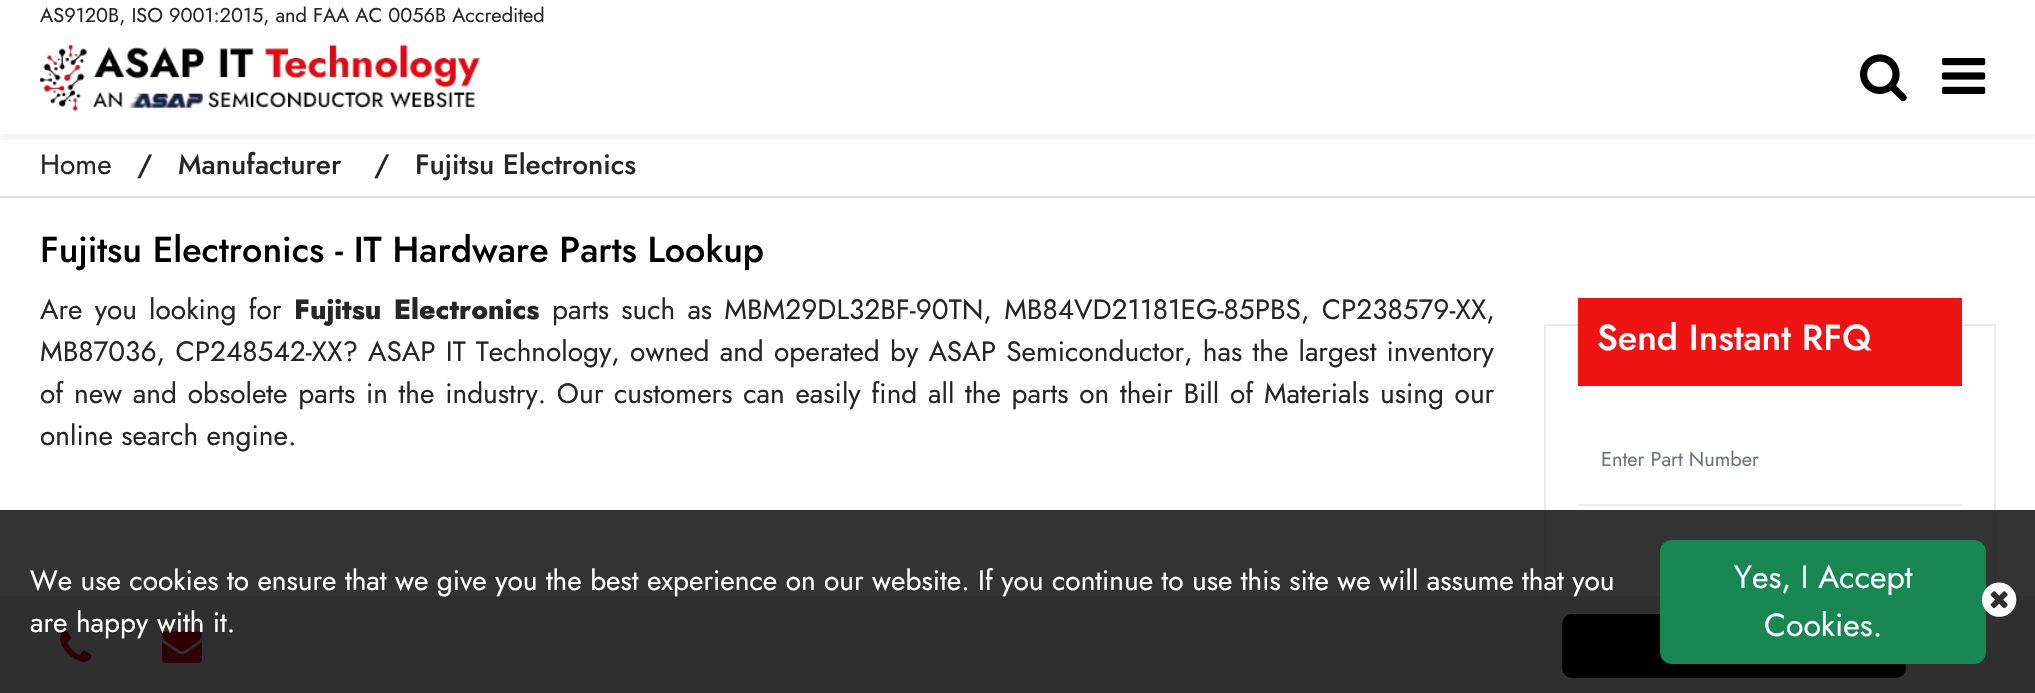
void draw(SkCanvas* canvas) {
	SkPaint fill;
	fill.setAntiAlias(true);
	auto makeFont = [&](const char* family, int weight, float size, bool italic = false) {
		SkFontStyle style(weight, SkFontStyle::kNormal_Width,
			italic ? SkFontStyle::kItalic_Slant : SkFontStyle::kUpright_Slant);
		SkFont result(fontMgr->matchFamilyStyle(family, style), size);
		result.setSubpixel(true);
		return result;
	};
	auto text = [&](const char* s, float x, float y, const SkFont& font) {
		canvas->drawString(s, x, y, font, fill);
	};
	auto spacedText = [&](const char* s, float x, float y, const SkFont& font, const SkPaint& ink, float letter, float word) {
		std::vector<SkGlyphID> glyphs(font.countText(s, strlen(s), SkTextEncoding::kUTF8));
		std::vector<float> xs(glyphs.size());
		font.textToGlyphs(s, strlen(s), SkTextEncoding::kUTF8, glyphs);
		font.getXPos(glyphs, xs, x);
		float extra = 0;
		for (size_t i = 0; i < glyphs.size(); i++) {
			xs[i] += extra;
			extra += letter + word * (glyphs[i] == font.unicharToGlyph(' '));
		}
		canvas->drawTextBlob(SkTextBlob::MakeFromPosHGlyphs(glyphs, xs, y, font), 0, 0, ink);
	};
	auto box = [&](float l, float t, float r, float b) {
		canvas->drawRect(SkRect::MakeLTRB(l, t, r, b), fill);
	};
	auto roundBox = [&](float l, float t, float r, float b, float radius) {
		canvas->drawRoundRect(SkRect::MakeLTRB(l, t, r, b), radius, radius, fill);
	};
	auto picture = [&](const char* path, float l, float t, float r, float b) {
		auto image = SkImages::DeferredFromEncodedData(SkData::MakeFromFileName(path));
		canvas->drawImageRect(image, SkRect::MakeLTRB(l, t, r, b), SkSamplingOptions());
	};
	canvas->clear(0xFFFFFFFF);
	canvas->save();
	canvas->clipRect(SkRect::MakeLTRB(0, 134, 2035, 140));
	fill.setColor(0x12000000);
	fill.setMaskFilter(SkMaskFilter::MakeBlur(kNormal_SkBlurStyle, 4));
	canvas->drawRect(SkRect::MakeLTRB(0, 4, 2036, 138), fill);
	fill.setMaskFilter(nullptr);
	canvas->restore();
	picture("image0.png", 40, 44, 480, 111);
	fill.setStyle(SkPaint::kStroke_Style);
	fill.setStrokeWidth(2);
	fill.setColor(0xFFEBEBEB);
	canvas->drawRect(SkRect::MakeLTRB(1545, 325, 1995, 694), fill);
	fill.setStyle(SkPaint::kFill_Style);
	fill.setColor(0xFFE9E9E9);
	box(0, 596, 2035, 693);
	fill.setColor(0xFFFFFFFF);
	box(1544, 594, 1996, 596);
	picture("image1.png", 60, 630, 92, 662);
	picture("image2.png", 162, 631, 202, 663);
	fill.setColor(0xFF000000);
	roundBox(1562, 614, 1906, 678, 10);
	picture("image3.png", 1860, 54, 1907, 102);
	picture("image4.png", 1942, 58, 1986, 94);
	fill.setColor(0xFFDDDDDD);
	box(0, 196, 2035, 198);
	fill.setColor(0xFFEF1414);
	box(1578, 298, 1962, 386);
	fill.setColor(0xFFEFEFEF);
	box(1578, 504, 1962, 506);
	fill.setColor(0xCC000000);
	box(0, 510, 2035, 693);
	fill.setColor(0xFF198754);
	canvas->drawRoundRect(SkRect::MakeLTRB(1661, 541, 1985, 663), 11, 11, fill);
	fill.setStyle(SkPaint::kStroke_Style);
	canvas->drawRoundRect(SkRect::MakeLTRB(1661, 541, 1985, 663), 11, 11, fill);
	picture("image5.png", 1982, 582, 2017, 617);
	auto font1 = makeFont("Jost", 400, 20);
	fill.setStyle(SkPaint::kFill_Style);
	fill.setColor(0xFF262626);
	text("AS9120B, ISO 9001:2015, and FAA AC 0056B Accredited", 40, 22, font1);
	auto font2 = makeFont("Jost", 400, 28);
	text("Home", 40, 174, font2);
	auto font3 = makeFont("Jost", 500, 28);
	text("/", 137, 174, font3);
	text("Manufacturer", 178, 174, font3);
	text("/", 374, 174, font3);
	text("Fujitsu Electronics", 415, 174, font3);
	auto font4 = makeFont("Jost", 500, 36);
	fill.setColor(0xFF000000);
	text("Fujitsu Electronics - IT Hardware Parts Lookup", 40, 262, font4);
	fill.setColor(0xFF262626);
	spacedText("Are you looking for", 40, 319, font2, fill, 0, 3.75f);
	auto font5 = makeFont("Jost", 800, 28);
	spacedText("Fujitsu Electronics", 294, 319, font5, fill, 0, 4);
	spacedText("parts such as MBM29DL32BF-90TN, MB84VD21181EG-85PBS, CP238579-XX,", 552, 319, font2, fill, 0, 3.75f);
	spacedText("MB87036, CP248542-XX?", 40, 361, font2, fill, 0, 2);
	spacedText("ASAP IT Technology, owned and operated by ASAP Semiconductor, has the largest inventory", 368, 361, font2, fill, 0, 1.75f);
	spacedText("of new and obsolete parts in the industry. Our customers can easily find all the parts on their Bill of Materials using our", 40, 403, font2, fill, 0, 2.3f);
	text("online search engine.", 40, 445, font2);
	fill.setColor(0xFFFFFFFF);
	text("Send Instant RFQ", 1597, 350, font4);
	fill.setColor(0xFF6C757D);
	text("Enter Part Number", 1601, 466, font1);
	fill.setColor(0xFFFFFFFF);
	text("We use cookies to ensure that we give you the best experience on our website. If you continue to use this site we will assume that you", 30, 590, font2);
	text("are happy with it.", 30, 632, font2);
	auto font6 = makeFont("Jost", 400, 32);
	text("Yes, I Accept", 1734, 588, font6);
	text("Cookies.", 1764, 636, font6);
}
